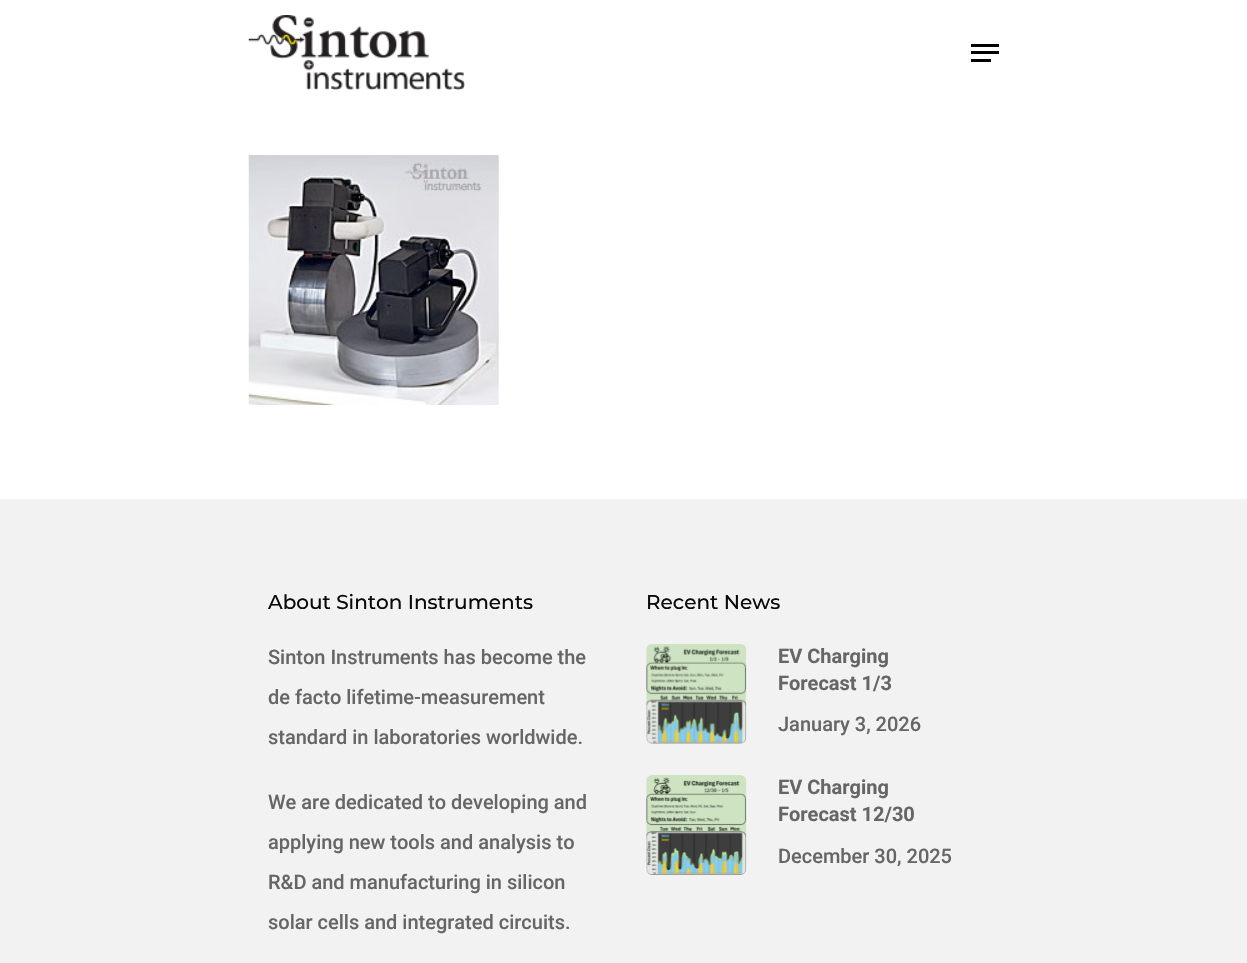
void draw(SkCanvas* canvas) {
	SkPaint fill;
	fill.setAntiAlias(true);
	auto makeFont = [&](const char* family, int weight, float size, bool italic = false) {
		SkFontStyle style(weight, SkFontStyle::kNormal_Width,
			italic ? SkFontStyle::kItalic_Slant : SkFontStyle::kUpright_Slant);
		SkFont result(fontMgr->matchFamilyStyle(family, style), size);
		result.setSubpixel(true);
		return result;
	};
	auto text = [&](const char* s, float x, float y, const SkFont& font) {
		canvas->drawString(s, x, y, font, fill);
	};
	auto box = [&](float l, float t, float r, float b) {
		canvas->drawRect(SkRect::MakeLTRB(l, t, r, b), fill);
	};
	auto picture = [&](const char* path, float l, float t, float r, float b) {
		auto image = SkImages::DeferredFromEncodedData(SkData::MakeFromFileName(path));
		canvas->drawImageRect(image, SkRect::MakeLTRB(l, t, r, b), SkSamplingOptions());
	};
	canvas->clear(0xFFFFFFFF);
	picture("image0.png", 248, 15, 465, 90);
	fill.setColor(0xFF000000);
	box(971, 44, 999, 47);
	box(971, 59, 991, 62);
	box(971, 51, 999, 54);
	picture("image1.png", 248, 155, 499, 405);
	fill.setColor(0xFFF2F2F2);
	box(0, 499, 1247, 963);
	picture("image2.png", 646, 644, 747, 744);
	picture("image3.png", 646, 775, 747, 875);
	auto font1 = makeFont("Montserrat", 100, 20);
	fill.setColor(0xFF0A0A0A);
	text("About Sinton Instruments", 268, 609, font1);
	auto font2 = makeFont("Roboto", 500, 20);
	fill.setColor(0xFF666666);
	text("Sinton Instruments has become the", 268, 664, font2);
	text("de facto lifetime-measurement", 268, 704, font2);
	text("standard in laboratories worldwide.", 268, 744, font2);
	text("We are dedicated to developing and", 268, 809, font2);
	text("applying new tools and analysis to", 268, 849, font2);
	text("R&D and manufacturing in silicon", 268, 889, font2);
	text("solar cells and integrated circuits.", 268, 929, font2);
	fill.setColor(0xFF0A0A0A);
	text("Recent News", 646, 609, font1);
	auto font3 = makeFont("Roboto", 700, 20);
	fill.setColor(0xFF666666);
	text("EV Charging", 778, 663, font3);
	text("Forecast 1/3", 778, 690, font3);
	text("January 3, 2026", 778, 731, font2);
	text("EV Charging", 778, 794, font3);
	text("Forecast 12/30", 778, 821, font3);
	text("December 30, 2025", 778, 863, font2);
}
